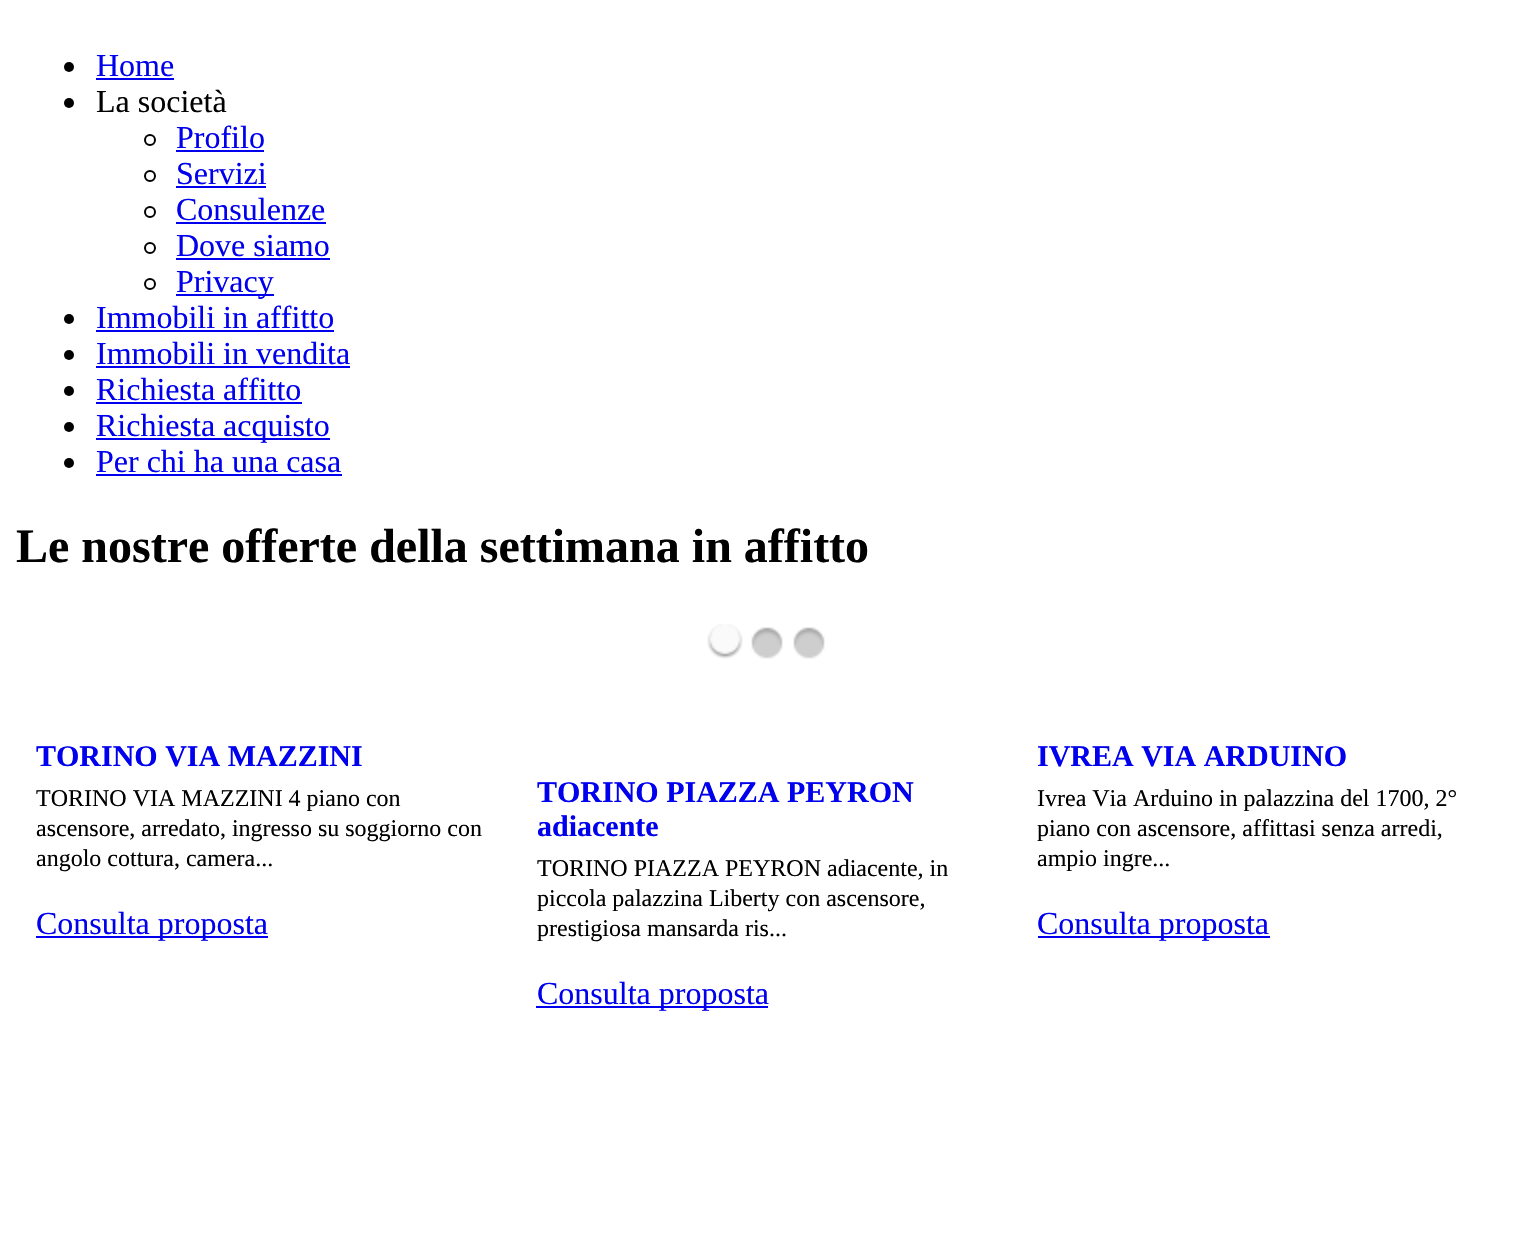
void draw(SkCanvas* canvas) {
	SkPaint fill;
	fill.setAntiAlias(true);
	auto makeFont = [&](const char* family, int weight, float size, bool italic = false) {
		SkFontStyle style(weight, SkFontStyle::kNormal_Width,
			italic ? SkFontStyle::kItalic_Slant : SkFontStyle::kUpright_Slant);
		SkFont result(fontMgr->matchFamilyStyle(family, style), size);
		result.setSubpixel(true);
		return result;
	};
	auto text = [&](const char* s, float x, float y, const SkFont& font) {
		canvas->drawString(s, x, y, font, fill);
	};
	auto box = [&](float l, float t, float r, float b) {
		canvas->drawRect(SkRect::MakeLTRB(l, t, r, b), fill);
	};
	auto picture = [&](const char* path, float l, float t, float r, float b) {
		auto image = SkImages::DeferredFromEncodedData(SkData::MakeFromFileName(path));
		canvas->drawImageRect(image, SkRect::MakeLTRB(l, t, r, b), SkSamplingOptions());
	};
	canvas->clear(0xFFFFFFFF);
	fill.setColor(0xFF000000);
	canvas->drawCircle(69, 67, 5, fill);
	fill.setColor(0xFF0000EE);
	box(96, 78, 174, 80);
	fill.setColor(0xFF000000);
	canvas->drawCircle(69, 103, 5, fill);
	fill.setStyle(SkPaint::kStroke_Style);
	fill.setStrokeWidth(2);
	canvas->drawCircle(150, 140, 5, fill);
	fill.setStyle(SkPaint::kFill_Style);
	fill.setColor(0xFF0000EE);
	box(176, 150, 264, 152);
	fill.setStyle(SkPaint::kStroke_Style);
	fill.setColor(0xFF000000);
	canvas->drawCircle(150, 176, 5, fill);
	fill.setStyle(SkPaint::kFill_Style);
	fill.setColor(0xFF0000EE);
	box(176, 186, 266, 188);
	fill.setStyle(SkPaint::kStroke_Style);
	fill.setColor(0xFF000000);
	canvas->drawCircle(150, 212, 5, fill);
	fill.setStyle(SkPaint::kFill_Style);
	fill.setColor(0xFF0000EE);
	box(176, 222, 326, 224);
	fill.setStyle(SkPaint::kStroke_Style);
	fill.setColor(0xFF000000);
	canvas->drawCircle(150, 248, 5, fill);
	fill.setStyle(SkPaint::kFill_Style);
	fill.setColor(0xFF0000EE);
	box(176, 258, 330, 260);
	fill.setStyle(SkPaint::kStroke_Style);
	fill.setColor(0xFF000000);
	canvas->drawCircle(150, 284, 5, fill);
	fill.setStyle(SkPaint::kFill_Style);
	fill.setColor(0xFF0000EE);
	box(176, 294, 274, 296);
	fill.setColor(0xFF000000);
	canvas->drawCircle(69, 319, 5, fill);
	fill.setColor(0xFF0000EE);
	box(96, 330, 334, 332);
	fill.setColor(0xFF000000);
	canvas->drawCircle(69, 355, 5, fill);
	fill.setColor(0xFF0000EE);
	box(96, 366, 350, 368);
	fill.setColor(0xFF000000);
	canvas->drawCircle(69, 391, 5, fill);
	fill.setColor(0xFF0000EE);
	box(96, 402, 302, 404);
	fill.setColor(0xFF000000);
	canvas->drawCircle(69, 427, 5, fill);
	fill.setColor(0xFF0000EE);
	box(96, 438, 330, 440);
	fill.setColor(0xFF000000);
	canvas->drawCircle(69, 463, 5, fill);
	fill.setColor(0xFF0000EE);
	box(96, 474, 342, 476);
	picture("image0.png", 707, 624, 743, 659);
	picture("image1.png", 751, 627, 783, 659);
	picture("image1.png", 793, 627, 825, 659);
	box(36, 936, 268, 938);
	box(536, 1006, 768, 1008);
	box(1038, 936, 1270, 938);
	auto font1 = makeFont("Liberation Serif", 400, 32);
	text("Home", 96, 76, font1);
	fill.setColor(0xFF000000);
	text("La società", 96, 112, font1);
	fill.setColor(0xFF0000EE);
	text("Profilo", 176, 148, font1);
	text("Servizi", 176, 184, font1);
	text("Consulenze", 176, 220, font1);
	text("Dove siamo", 176, 256, font1);
	text("Privacy", 176, 292, font1);
	text("Immobili in affitto", 96, 328, font1);
	text("Immobili in vendita", 96, 364, font1);
	text("Richiesta affitto", 96, 400, font1);
	text("Richiesta acquisto", 96, 436, font1);
	text("Per chi ha una casa", 96, 472, font1);
	auto font2 = makeFont("Liberation Serif", 700, 48);
	fill.setColor(0xFF000000);
	text("Le nostre offerte della settimana in affitto", 16, 562, font2);
	auto font3 = makeFont("Liberation Serif", 700, 30);
	fill.setColor(0xFF0000EE);
	text("TORINO VIA MAZZINI", 36, 766, font3);
	auto font4 = makeFont("Liberation Serif", 400, 24);
	fill.setColor(0xFF000000);
	text("TORINO VIA MAZZINI 4 piano con", 36, 806, font4);
	text("ascensore, arredato, ingresso su soggiorno con", 36, 836, font4);
	text("angolo cottura, camera...", 36, 866, font4);
	fill.setColor(0xFF0000EE);
	text("Consulta proposta", 36, 934, font1);
	text("TORINO PIAZZA PEYRON", 537, 802, font3);
	text("adiacente", 537, 836, font3);
	fill.setColor(0xFF000000);
	text("TORINO PIAZZA PEYRON adiacente, in", 537, 876, font4);
	text("piccola palazzina Liberty con ascensore,", 537, 906, font4);
	text("prestigiosa mansarda ris...", 537, 936, font4);
	fill.setColor(0xFF0000EE);
	text("Consulta proposta", 537, 1004, font1);
	text("IVREA VIA ARDUINO", 1037, 766, font3);
	fill.setColor(0xFF000000);
	text("Ivrea Via Arduino in palazzina del 1700, 2°", 1037, 806, font4);
	text("piano con ascensore, affittasi senza arredi,", 1037, 836, font4);
	text("ampio ingre...", 1037, 866, font4);
	fill.setColor(0xFF0000EE);
	text("Consulta proposta", 1037, 934, font1);
}
